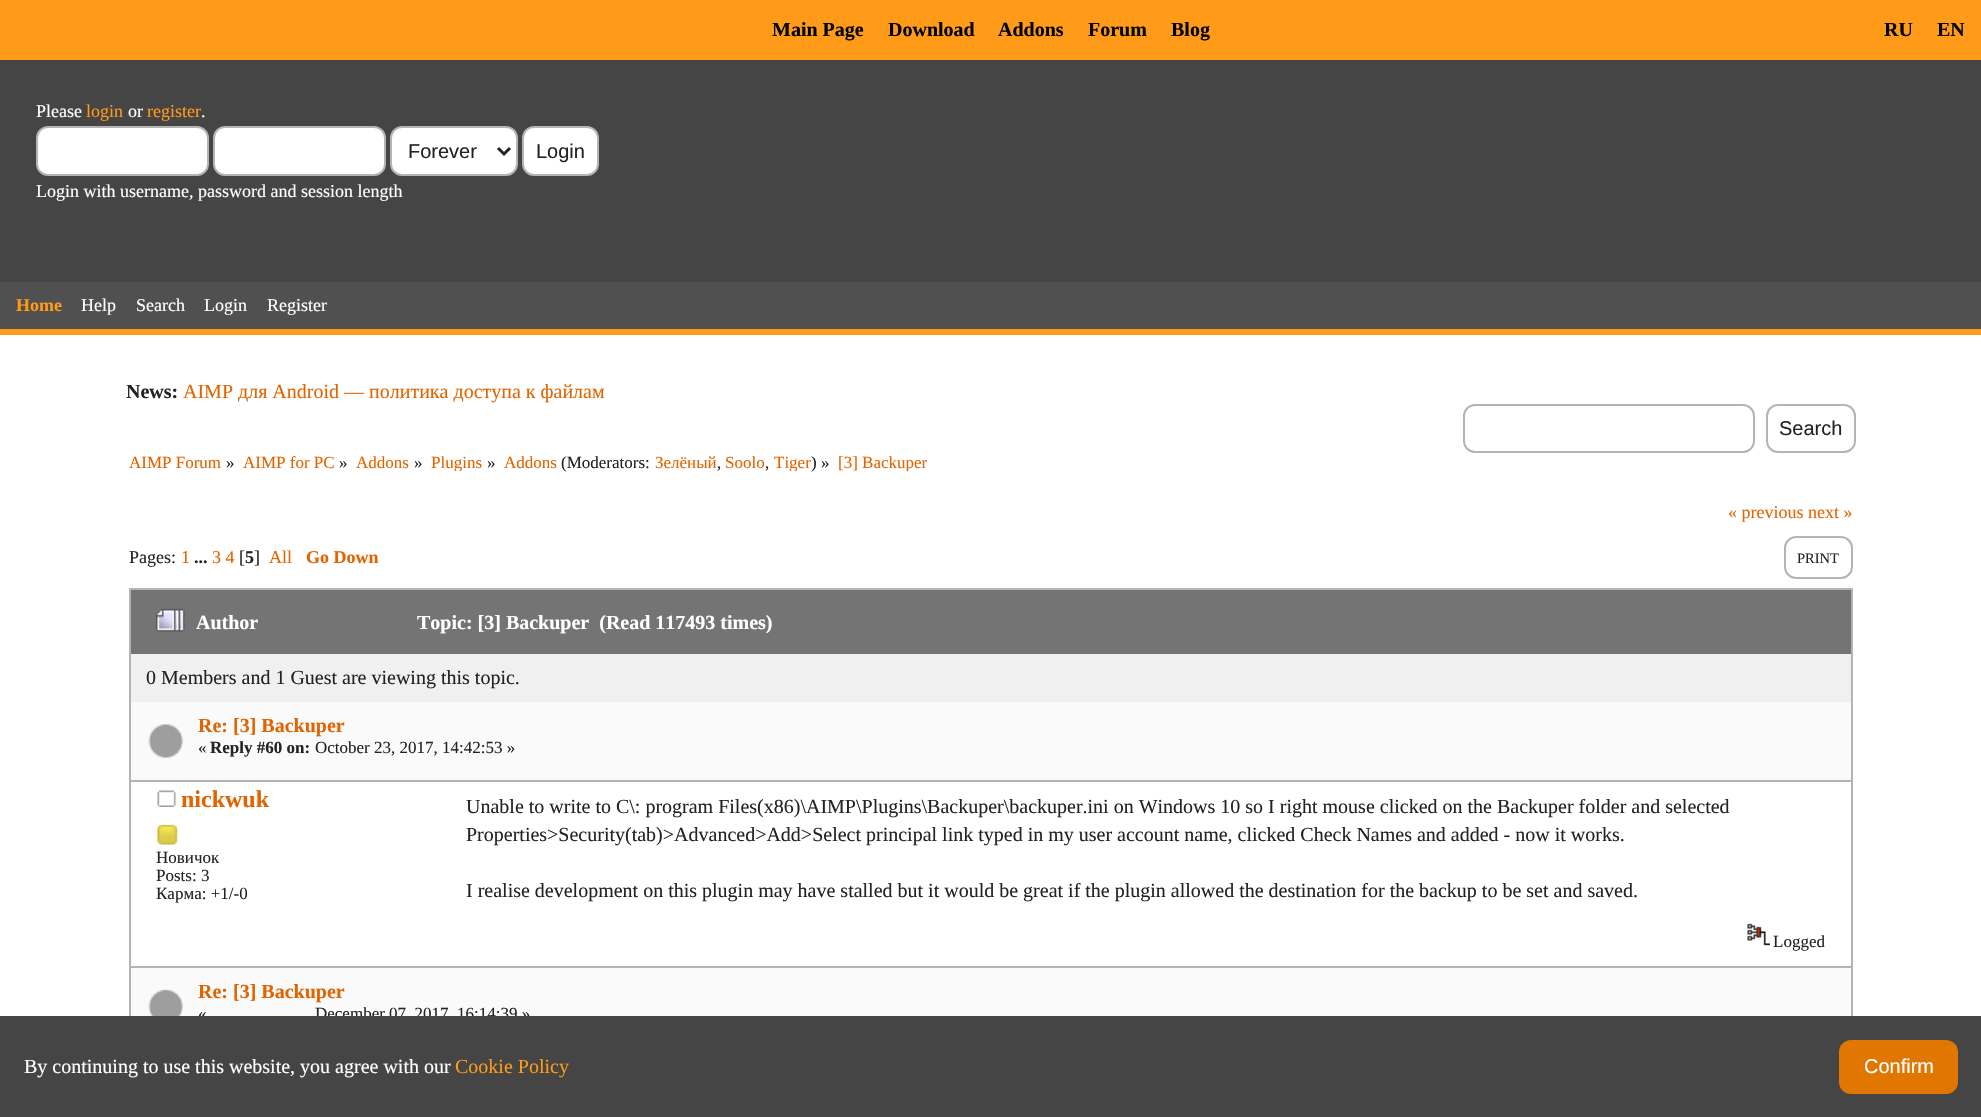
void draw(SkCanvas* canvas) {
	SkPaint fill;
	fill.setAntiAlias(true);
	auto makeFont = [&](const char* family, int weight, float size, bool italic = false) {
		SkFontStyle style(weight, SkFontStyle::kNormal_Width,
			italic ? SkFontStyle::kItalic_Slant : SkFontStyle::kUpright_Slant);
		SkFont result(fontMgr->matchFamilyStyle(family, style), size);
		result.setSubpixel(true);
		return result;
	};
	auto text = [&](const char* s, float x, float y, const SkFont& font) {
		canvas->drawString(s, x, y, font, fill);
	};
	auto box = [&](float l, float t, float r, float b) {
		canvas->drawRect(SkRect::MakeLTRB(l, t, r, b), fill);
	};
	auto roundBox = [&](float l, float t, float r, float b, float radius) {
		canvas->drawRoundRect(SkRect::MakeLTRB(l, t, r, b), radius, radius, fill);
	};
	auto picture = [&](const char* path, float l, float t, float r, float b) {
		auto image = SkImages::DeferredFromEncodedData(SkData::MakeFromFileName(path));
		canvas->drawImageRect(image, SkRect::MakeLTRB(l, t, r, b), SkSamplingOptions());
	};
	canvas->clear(0xFF454545);
	fill.setColor(0xFFFF9B19);
	box(0, 0, 1981, 60);
	fill.setColor(0xFFFFFFFF);
	canvas->drawRoundRect(SkRect::MakeLTRB(37, 127, 208, 175), 11, 11, fill);
	fill.setStyle(SkPaint::kStroke_Style);
	fill.setStrokeWidth(2);
	fill.setColor(0xFFB4B4B4);
	canvas->drawRoundRect(SkRect::MakeLTRB(37, 127, 208, 175), 11, 11, fill);
	fill.setStyle(SkPaint::kFill_Style);
	fill.setColor(0xFFFFFFFF);
	canvas->drawRoundRect(SkRect::MakeLTRB(214, 127, 385, 175), 11, 11, fill);
	fill.setStyle(SkPaint::kStroke_Style);
	fill.setColor(0xFFB4B4B4);
	canvas->drawRoundRect(SkRect::MakeLTRB(214, 127, 385, 175), 11, 11, fill);
	fill.setStyle(SkPaint::kFill_Style);
	fill.setColor(0xFFFFFFFF);
	canvas->drawRoundRect(SkRect::MakeLTRB(391, 127, 517, 175), 11, 11, fill);
	fill.setStyle(SkPaint::kStroke_Style);
	fill.setColor(0xFFB4B4B4);
	canvas->drawRoundRect(SkRect::MakeLTRB(391, 127, 517, 175), 11, 11, fill);
	fill.setStrokeWidth(3);
	fill.setColor(0xFF232323);
	canvas->drawPath(SkPathBuilder().moveTo(498, 148).lineTo(504, 154).lineTo(510, 148).detach(), fill);
	fill.setStyle(SkPaint::kFill_Style);
	fill.setColor(0xFFFFFFFF);
	canvas->drawRoundRect(SkRect::MakeLTRB(523, 127, 598, 175), 11, 11, fill);
	fill.setStyle(SkPaint::kStroke_Style);
	fill.setStrokeWidth(2);
	fill.setColor(0xFFB4B4B4);
	canvas->drawRoundRect(SkRect::MakeLTRB(523, 127, 598, 175), 11, 11, fill);
	fill.setStyle(SkPaint::kFill_Style);
	fill.setColor(0xFF505050);
	box(0, 282, 1981, 329);
	fill.setColor(0xFFFF9B19);
	box(0, 329, 1981, 335);
	fill.setColor(0xFFFFFFFF);
	box(0, 335, 1981, 1016);
	fill.setStyle(SkPaint::kStroke_Style);
	fill.setColor(0xFFB4B4B4);
	canvas->drawRoundRect(SkRect::MakeLTRB(1464, 405, 1754, 452), 11, 11, fill);
	canvas->drawRoundRect(SkRect::MakeLTRB(1767, 405, 1855, 452), 11, 11, fill);
	canvas->drawRoundRect(SkRect::MakeLTRB(1785, 537, 1852, 578), 11, 11, fill);
	fill.setStyle(SkPaint::kFill_Style);
	box(129, 588, 1853, 1016);
	fill.setColor(0xFF747474);
	box(131, 590, 1851, 654);
	picture("image0.png", 156, 608, 185, 632);
	fill.setColor(0xFFF0F0F0);
	box(131, 654, 1851, 702);
	fill.setColor(0xFFFFFFFF);
	box(131, 782, 1851, 966);
	fill.setColor(0xFFFAFAFA);
	box(131, 702, 1851, 780);
	picture("image1.png", 148, 724, 183, 758);
	picture("image2.png", 157, 790, 176, 807);
	picture("image3.png", 157, 824, 178, 845);
	picture("image4.png", 1747, 923, 1770, 946);
	box(131, 968, 1851, 1016);
	picture("image5.png", 148, 989, 183, 1016);
	fill.setColor(0xFFE17600);
	roundBox(1839, 1040, 1958, 1094, 12);
	auto font1 = makeFont("Liberation Serif", 700, 20);
	fill.setColor(0xFF000000);
	text("Main Page", 772, 36, font1);
	text("Download", 888, 36, font1);
	text("Addons", 998, 36, font1);
	text("Forum", 1088, 36, font1);
	text("Blog", 1171, 36, font1);
	text("RU", 1884, 36, font1);
	text("EN", 1937, 36, font1);
	auto font2 = makeFont("Liberation Serif", 400, 18);
	fill.setColor(0xFFFFFFFF);
	text("Please", 36, 117, font2);
	fill.setColor(0xFFFF9B19);
	text("login", 86, 117, font2);
	fill.setColor(0xFFFFFFFF);
	text("or", 128, 117, font2);
	fill.setColor(0xFFFF9B19);
	text("register", 147, 117, font2);
	fill.setColor(0xFFFFFFFF);
	text(".", 201, 117, font2);
	auto font3 = makeFont("Liberation Sans", 400, 20);
	fill.setColor(0xFF232323);
	text("Forever", 408, 158, font3);
	text("Login", 536, 158, font3);
	fill.setColor(0xFFFFFFFF);
	text("Login with username, password and session length", 36, 197, font2);
	auto font4 = makeFont("Liberation Serif", 700, 18);
	fill.setColor(0xFFFF9B19);
	text("Home", 16, 311, font4);
	fill.setColor(0xFFFFFFFF);
	text("Help", 81, 311, font2);
	text("Search", 136, 311, font2);
	text("Login", 204, 311, font2);
	text("Register", 267, 311, font2);
	fill.setColor(0xFF232323);
	text("News:", 126, 398, font1);
	auto font5 = makeFont("Liberation Serif", 400, 20);
	fill.setColor(0xFFE16400);
	text("AIMP для Android — политика доступа к файлам", 183, 398, font5);
	fill.setColor(0xFF232323);
	text("Search", 1779, 435, font3);
	auto font6 = makeFont("Liberation Serif", 400, 17);
	fill.setColor(0xFFE16400);
	text("AIMP Forum", 129, 468, font6);
	fill.setColor(0xFF232323);
	text("»", 226, 468, font6);
	fill.setColor(0xFFE16400);
	text("AIMP for PC", 243, 468, font6);
	fill.setColor(0xFF232323);
	text("»", 339, 468, font6);
	fill.setColor(0xFFE16400);
	text("Addons", 356, 468, font6);
	fill.setColor(0xFF232323);
	text("»", 414, 468, font6);
	canvas->save();
	canvas->clipRect(SkRect::MakeLTRB(129, 453, 1853, 471));
	fill.setColor(0xFFE16400);
	text("Plugins", 431, 468, font6);
	canvas->restore();
	fill.setColor(0xFF232323);
	text("»", 487, 468, font6);
	fill.setColor(0xFFE16400);
	text("Addons", 504, 468, font6);
	fill.setColor(0xFF232323);
	text("(Moderators:", 561, 468, font6);
	fill.setColor(0xFFE16400);
	text("Зелёный", 655, 468, font6);
	fill.setColor(0xFF232323);
	text(",", 717, 468, font6);
	fill.setColor(0xFFE16400);
	text("Soolo", 725, 468, font6);
	fill.setColor(0xFF232323);
	text(",", 765, 468, font6);
	canvas->save();
	canvas->clipRect(SkRect::MakeLTRB(129, 453, 1853, 471));
	fill.setColor(0xFFE16400);
	text("Tiger", 774, 468, font6);
	canvas->restore();
	fill.setColor(0xFF232323);
	text(") »", 811, 468, font6);
	canvas->save();
	canvas->clipRect(SkRect::MakeLTRB(129, 453, 1853, 471));
	fill.setColor(0xFFE16400);
	text("[3] Backuper", 838, 468, font6);
	canvas->restore();
	text("« previous next »", 1728, 518, font2);
	fill.setColor(0xFF232323);
	text("Pages:", 129, 563, font2);
	fill.setColor(0xFFE16400);
	text("1", 181, 563, font2);
	fill.setColor(0xFF232323);
	text("...", 194, 563, font4);
	fill.setColor(0xFFE16400);
	text("3 4", 212, 563, font2);
	fill.setColor(0xFF232323);
	text("[", 239, 563, font2);
	text("5", 245, 563, font4);
	text("]", 254, 563, font2);
	fill.setColor(0xFFE16400);
	text("All", 269, 563, font2);
	text("Go Down", 306, 563, font4);
	auto font7 = makeFont("Liberation Serif", 400, 14.5f);
	fill.setColor(0xFF232323);
	text("PRINT", 1797, 563, font7);
	fill.setColor(0xFFFFFFFF);
	text("Author", 196, 629, font1);
	text("Topic: [3] Backuper  (Read 117493 times)", 417, 629, font1);
	fill.setColor(0xFF232323);
	text("0 Members and 1 Guest are viewing this topic.", 146, 684, font5);
	fill.setColor(0xFFE16400);
	text("Re: [3] Backuper", 198, 732, font1);
	fill.setColor(0xFF232323);
	text("«", 198, 753, font6);
	auto font8 = makeFont("Liberation Serif", 700, 17);
	text("Reply #60 on:", 210, 753, font8);
	text("October 23, 2017, 14:42:53 »", 315, 753, font6);
	auto font9 = makeFont("Liberation Serif", 700, 24);
	fill.setColor(0xFFE16400);
	text("nickwuk", 181, 807, font9);
	fill.setColor(0xFF232323);
	text("Новичок", 156, 863, font6);
	text("Posts: 3", 156, 881, font6);
	text("Карма: +1/-0", 156, 899, font6);
	text("Unable to write to C\\: program Files(x86)\\AIMP\\Plugins\\Backuper\\backuper.ini on Windows 10 so I right mouse clicked on the Backuper folder and selected", 466, 813, font5);
	text("Properties>Security(tab)>Advanced>Add>Select principal link typed in my user account name, clicked Check Names and added - now it works.", 466, 841, font5);
	text("I realise development on this plugin may have stalled but it would be great if the plugin allowed the destination for the backup to be set and saved.", 466, 897, font5);
	text("Logged", 1773, 947, font6);
	fill.setColor(0xFFE16400);
	text("Re: [3] Backuper", 198, 998, font1);
	fill.setColor(0xFF232323);
	text("«", 198, 1019, font6);
	text("December 07, 2017, 16:14:39 »", 315, 1019, font6);
	fill.setColor(0xFF454545);
	box(199, 1016, 529, 1022);
	fill.setColor(0xFFFFFFFF);
	text("By continuing to use this website, you agree with our", 24, 1073, font5);
	fill.setColor(0xFFFF9B19);
	text("Cookie Policy", 455, 1073, font5);
	fill.setColor(0xFFFFFFFF);
	text("Confirm", 1864, 1073, font3);
}
